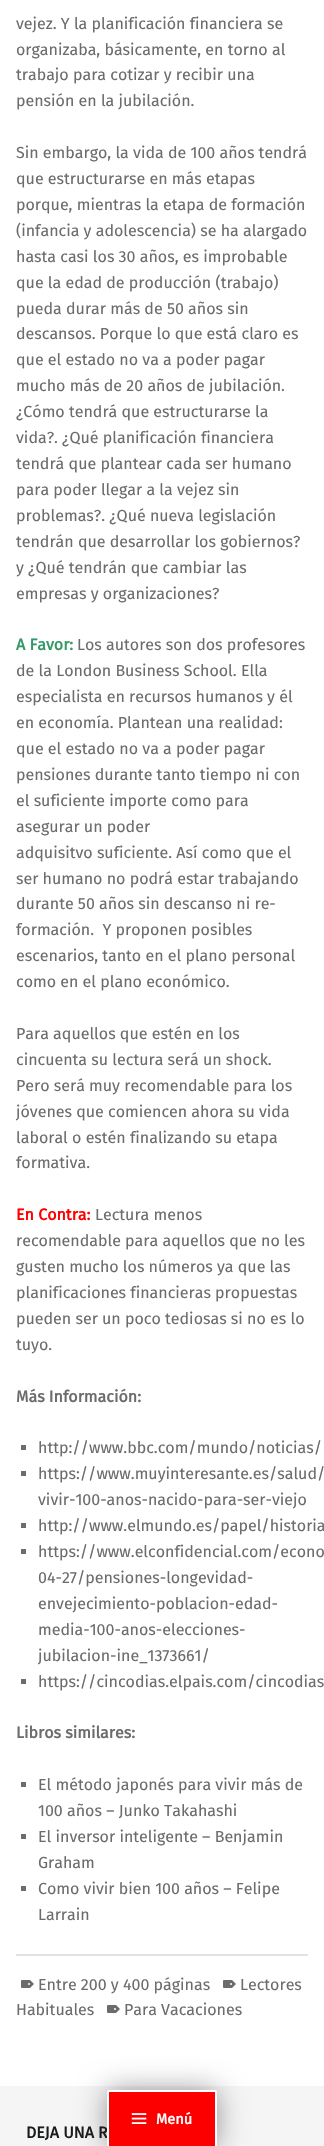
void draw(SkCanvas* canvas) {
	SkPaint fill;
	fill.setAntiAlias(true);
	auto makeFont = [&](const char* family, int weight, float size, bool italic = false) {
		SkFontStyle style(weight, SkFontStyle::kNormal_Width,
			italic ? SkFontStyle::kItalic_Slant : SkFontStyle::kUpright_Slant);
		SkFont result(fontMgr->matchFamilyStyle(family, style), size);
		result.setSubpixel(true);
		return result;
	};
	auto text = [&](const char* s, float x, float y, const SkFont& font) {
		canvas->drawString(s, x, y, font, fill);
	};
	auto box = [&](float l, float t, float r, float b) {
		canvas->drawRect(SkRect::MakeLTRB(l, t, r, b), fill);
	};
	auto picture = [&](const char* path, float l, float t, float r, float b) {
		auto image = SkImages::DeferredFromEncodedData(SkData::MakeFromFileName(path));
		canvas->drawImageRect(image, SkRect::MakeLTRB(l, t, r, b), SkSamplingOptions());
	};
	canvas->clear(0xFFFFFFFF);
	fill.setColor(0xFF6A6C6E);
	box(21, 1445, 26, 1450);
	box(21, 1471, 26, 1476);
	box(21, 1523, 26, 1528);
	box(21, 1549, 26, 1554);
	box(21, 1679, 26, 1684);
	box(21, 1782, 26, 1787);
	box(21, 1834, 26, 1839);
	box(21, 1886, 26, 1891);
	fill.setColor(0xFFE1E2E2);
	box(16, 1954, 308, 1956);
	picture("image0.png", 21, 1980, 34, 1988);
	picture("image0.png", 223, 1980, 236, 1988);
	picture("image0.png", 107, 2005, 120, 2013);
	fill.setColor(0xFFF5F5F5);
	box(0, 2086, 324, 2146);
	fill.setColor(0x66000000);
	fill.setMaskFilter(SkMaskFilter::MakeBlur(kNormal_SkBlurStyle, 14.5f));
	canvas->drawRoundRect(SkRect::MakeLTRB(107, 2090, 217, 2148), 2, 2, fill);
	fill.setMaskFilter(nullptr);
	auto font1 = makeFont("Fira Sans", 400, 16);
	fill.setColor(0xFF6A6C6E);
	text("vejez. Y la planificación financiera se", 16, 29, font1);
	text("organizaba, básicamente, en torno al", 16, 55, font1);
	text("trabajo para cotizar y recibir una", 16, 80, font1);
	text("pensión en la jubilación.", 16, 106, font1);
	text("Sin embargo, la vida de 100 años tendrá", 16, 158, font1);
	text("que estructurarse en más etapas", 16, 184, font1);
	text("porque, mientras la etapa de formación", 16, 210, font1);
	text("(infancia y adolescencia) se ha alargado", 16, 236, font1);
	text("hasta casi los 30 años, es improbable", 16, 262, font1);
	text("que la edad de producción (trabajo)", 16, 288, font1);
	text("pueda durar más de 50 años sin", 16, 314, font1);
	text("descansos. Porque lo que está claro es", 16, 339, font1);
	text("que el estado no va a poder pagar", 16, 365, font1);
	text("mucho más de 20 años de jubilación.", 16, 391, font1);
	text("¿Cómo tendrá que estructurarse la", 16, 417, font1);
	text("vida?. ¿Qué planificación financiera", 16, 443, font1);
	text("tendrá que plantear cada ser humano", 16, 469, font1);
	text("para poder llegar a la vejez sin", 16, 495, font1);
	text("problemas?. ¿Qué nueva legislación", 16, 521, font1);
	text("tendrán que desarrollar los gobiernos?", 16, 547, font1);
	text("y ¿Qué tendrán que cambiar las", 16, 573, font1);
	text("empresas y organizaciones?", 16, 599, font1);
	auto font2 = makeFont("Fira Sans", 700, 16);
	fill.setColor(0xFF339966);
	text("A Favor:", 16, 650, font2);
	fill.setColor(0xFF6A6C6E);
	text("Los autores son dos profesores", 77, 650, font1);
	text("de la London Business School. Ella", 16, 676, font1);
	text("especialista en recursos humanos y él", 16, 702, font1);
	text("en economía. Plantean una realidad:", 16, 728, font1);
	text("que el estado no va a poder pagar", 16, 754, font1);
	text("pensiones durante tanto tiempo ni con", 16, 780, font1);
	text("el suficiente importe como para", 16, 806, font1);
	text("asegurar un poder", 16, 832, font1);
	text("adquisitvo suficiente. Así como que el", 16, 858, font1);
	text("ser humano no podrá estar trabajando", 16, 884, font1);
	text("durante 50 años sin descanso ni re-", 16, 909, font1);
	text("formación.  Y proponen posibles", 16, 935, font1);
	text("escenarios, tanto en el plano personal", 16, 961, font1);
	text("como en el plano económico.", 16, 987, font1);
	text("Para aquellos que estén en los", 16, 1039, font1);
	text("cincuenta su lectura será un shock.", 16, 1065, font1);
	text("Pero será muy recomendable para los", 16, 1091, font1);
	text("jóvenes que comiencen ahora su vida", 16, 1117, font1);
	text("laboral o estén finalizando su etapa", 16, 1143, font1);
	text("formativa.", 16, 1168, font1);
	fill.setColor(0xFFFF0000);
	text("En Contra:", 16, 1220, font2);
	fill.setColor(0xFF6A6C6E);
	text("Lectura menos", 95, 1220, font1);
	text("recomendable para aquellos que no les", 16, 1246, font1);
	text("gusten mucho los números ya que las", 16, 1272, font1);
	text("planificaciones financieras propuestas", 16, 1298, font1);
	text("pueden ser un poco tediosas si no es lo", 16, 1324, font1);
	text("tuyo.", 16, 1350, font1);
	text("Más Información:", 16, 1402, font2);
	text("http://www.bbc.com/mundo/noticias/", 38, 1453, font1);
	text("https://www.muyinteresante.es/salud/", 38, 1479, font1);
	text("vivir-100-anos-nacido-para-ser-viejo", 38, 1505, font1);
	text("http://www.elmundo.es/papel/historia", 38, 1531, font1);
	text("https://www.elconfidencial.com/econo", 38, 1557, font1);
	text("04-27/pensiones-longevidad-", 38, 1583, font1);
	text("envejecimiento-poblacion-edad-", 38, 1609, font1);
	text("media-100-anos-elecciones-", 38, 1635, font1);
	text("jubilacion-ine_1373661/", 38, 1661, font1);
	text("https://cincodias.elpais.com/cincodias", 38, 1687, font1);
	text("Libros similares:", 16, 1738, font2);
	text("El método japonés para vivir más de", 38, 1790, font1);
	text("100 años – Junko Takahashi", 38, 1816, font1);
	text("El inversor inteligente – Benjamin", 38, 1842, font1);
	text("Graham", 38, 1868, font1);
	text("Como vivir bien 100 años – Felipe", 38, 1894, font1);
	text("Larrain", 38, 1920, font1);
	text("Entre 200 y 400 páginas", 38, 1990, font1);
	text("Lectores", 240, 1990, font1);
	text("Habituales", 16, 2015, font1);
	text("Para Vacaciones", 124, 2015, font1);
	fill.setColor(0xFF1A1C1E);
	text("DEJA UNA R", 26, 2138, font2);
	fill.setColor(0xFFFC0000);
	canvas->drawRoundRect(SkRect::MakeLTRB(108, 2091, 216, 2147), 1, 1, fill);
	fill.setStyle(SkPaint::kStroke_Style);
	fill.setStrokeWidth(2);
	fill.setColor(0xFFFFFFFF);
	canvas->drawRoundRect(SkRect::MakeLTRB(108, 2091, 216, 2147), 1, 1, fill);
	picture("image1.png", 131, 2113, 147, 2124);
	auto font3 = makeFont("Fira Sans", 700, 14.5f);
	fill.setStyle(SkPaint::kFill_Style);
	text("Menú", 156, 2124, font3);
}
